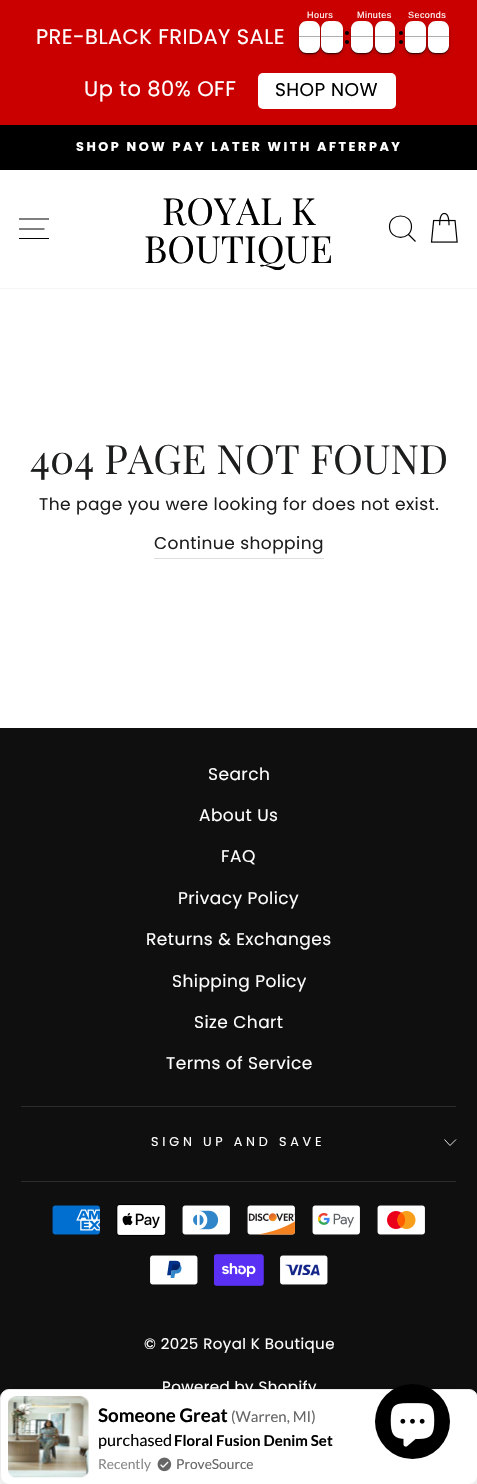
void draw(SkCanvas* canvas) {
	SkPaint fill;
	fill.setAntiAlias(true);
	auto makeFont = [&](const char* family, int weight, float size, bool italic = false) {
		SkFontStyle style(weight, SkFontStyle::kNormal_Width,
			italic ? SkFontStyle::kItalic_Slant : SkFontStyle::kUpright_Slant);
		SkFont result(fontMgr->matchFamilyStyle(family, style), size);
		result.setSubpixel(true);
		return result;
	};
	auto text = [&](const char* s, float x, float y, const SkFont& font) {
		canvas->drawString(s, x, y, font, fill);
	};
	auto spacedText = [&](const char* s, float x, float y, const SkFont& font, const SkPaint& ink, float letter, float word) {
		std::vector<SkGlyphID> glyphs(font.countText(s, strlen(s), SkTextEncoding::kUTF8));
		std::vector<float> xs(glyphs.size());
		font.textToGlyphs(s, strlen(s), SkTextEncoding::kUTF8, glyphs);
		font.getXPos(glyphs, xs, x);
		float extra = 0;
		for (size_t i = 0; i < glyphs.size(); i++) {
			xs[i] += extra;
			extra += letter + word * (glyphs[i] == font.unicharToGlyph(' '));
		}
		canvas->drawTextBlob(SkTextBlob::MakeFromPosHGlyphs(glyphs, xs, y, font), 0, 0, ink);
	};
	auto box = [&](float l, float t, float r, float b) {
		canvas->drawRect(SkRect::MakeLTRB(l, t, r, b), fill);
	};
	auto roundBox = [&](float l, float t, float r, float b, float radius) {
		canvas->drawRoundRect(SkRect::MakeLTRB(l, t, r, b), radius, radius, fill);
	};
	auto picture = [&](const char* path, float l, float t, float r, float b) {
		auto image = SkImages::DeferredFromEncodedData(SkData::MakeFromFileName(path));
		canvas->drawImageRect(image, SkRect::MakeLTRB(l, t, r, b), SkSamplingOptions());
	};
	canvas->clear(0xFFFFFFFF);
	fill.setColor(0xFFCA0000);
	box(0, 0, 477, 125);
	fill.setColor(0x3D000000);
	fill.setMaskFilter(SkMaskFilter::MakeBlur(kNormal_SkBlurStyle, 2));
	canvas->drawRoundRect(SkRect::MakeLTRB(299, 24, 320, 55), 8, 8, fill);
	fill.setMaskFilter(nullptr);
	fill.setColor(0x66000000);
	fill.setMaskFilter(SkMaskFilter::MakeBlur(kNormal_SkBlurStyle, 0.5f));
	canvas->drawRoundRect(SkRect::MakeLTRB(299, 39, 320, 54), 7.5f, 7.5f, fill);
	fill.setMaskFilter(nullptr);
	fill.setColor(0x3D000000);
	fill.setMaskFilter(SkMaskFilter::MakeBlur(kNormal_SkBlurStyle, 2));
	canvas->drawRoundRect(SkRect::MakeLTRB(321, 24, 343, 55), 8, 8, fill);
	fill.setMaskFilter(nullptr);
	fill.setColor(0xFF000000);
	canvas->drawCircle(347, 42, 2, fill);
	fill.setColor(0x66000000);
	fill.setMaskFilter(SkMaskFilter::MakeBlur(kNormal_SkBlurStyle, 0.5f));
	canvas->drawRoundRect(SkRect::MakeLTRB(321, 39, 343, 54), 7.5f, 7.5f, fill);
	fill.setMaskFilter(nullptr);
	fill.setColor(0xFFFFFFFF);
	canvas->drawPath(SkPathBuilder().moveTo(307, 21).lineTo(312, 21).cubicTo(316.5f, 21, 320, 24.5f, 320, 29).lineTo(320, 38).lineTo(299, 38).lineTo(299, 29).cubicTo(299, 24.5f, 302.5f, 21, 307, 21).close().detach(), fill);
	fill.setColor(0x66333333);
	box(299, 36, 320, 37);
	fill.setColor(0x66000000);
	fill.setMaskFilter(SkMaskFilter::MakeBlur(kNormal_SkBlurStyle, 0.5f));
	canvas->drawRoundRect(SkRect::MakeLTRB(299, 39, 320, 54), 7.5f, 7.5f, fill);
	fill.setMaskFilter(nullptr);
	fill.setColor(0xFFFFFFFF);
	canvas->drawPath(SkPathBuilder().moveTo(299, 38).lineTo(320, 38).lineTo(320, 45.5f).cubicTo(320, 49.5f, 316.5f, 53, 312.5f, 53).lineTo(306.5f, 53).cubicTo(302.5f, 53, 299, 49.5f, 299, 45.5f).close().detach(), fill);
	fill.setColor(0x1ACCCCCC);
	box(299, 38, 320, 39);
	fill.setColor(0xFFFFFFFF);
	canvas->drawPath(SkPathBuilder().moveTo(329, 21).lineTo(335, 21).cubicTo(339.5f, 21, 343, 24.5f, 343, 29).lineTo(343, 38).lineTo(321, 38).lineTo(321, 29).cubicTo(321, 24.5f, 324.5f, 21, 329, 21).close().detach(), fill);
	fill.setColor(0x66333333);
	box(321, 36, 343, 37);
	fill.setColor(0x66000000);
	fill.setMaskFilter(SkMaskFilter::MakeBlur(kNormal_SkBlurStyle, 0.5f));
	canvas->drawRoundRect(SkRect::MakeLTRB(321, 39, 343, 54), 7.5f, 7.5f, fill);
	fill.setMaskFilter(nullptr);
	fill.setColor(0xFFFFFFFF);
	canvas->drawPath(SkPathBuilder().moveTo(321, 38).lineTo(343, 38).lineTo(343, 45.5f).cubicTo(343, 49.5f, 339.5f, 53, 335.5f, 53).lineTo(328.5f, 53).cubicTo(324.5f, 53, 321, 49.5f, 321, 45.5f).close().detach(), fill);
	fill.setColor(0x1ACCCCCC);
	box(321, 38, 343, 39);
	fill.setColor(0xFF000000);
	canvas->drawCircle(347, 33, 2, fill);
	fill.setColor(0x3D000000);
	fill.setMaskFilter(SkMaskFilter::MakeBlur(kNormal_SkBlurStyle, 2));
	canvas->drawRoundRect(SkRect::MakeLTRB(351, 24, 373, 55), 8, 8, fill);
	fill.setMaskFilter(nullptr);
	fill.setColor(0x66000000);
	fill.setMaskFilter(SkMaskFilter::MakeBlur(kNormal_SkBlurStyle, 0.5f));
	canvas->drawRoundRect(SkRect::MakeLTRB(351, 39, 373, 54), 7.5f, 7.5f, fill);
	fill.setMaskFilter(nullptr);
	fill.setColor(0x3D000000);
	fill.setMaskFilter(SkMaskFilter::MakeBlur(kNormal_SkBlurStyle, 2));
	canvas->drawRoundRect(SkRect::MakeLTRB(375, 24, 395, 55), 8, 8, fill);
	fill.setMaskFilter(nullptr);
	fill.setColor(0x66000000);
	fill.setMaskFilter(SkMaskFilter::MakeBlur(kNormal_SkBlurStyle, 0.5f));
	canvas->drawRoundRect(SkRect::MakeLTRB(375, 39, 395, 54), 7.5f, 7.5f, fill);
	fill.setMaskFilter(nullptr);
	fill.setColor(0xFFFFFFFF);
	canvas->drawPath(SkPathBuilder().moveTo(359, 21).lineTo(365, 21).cubicTo(369.5f, 21, 373, 24.5f, 373, 29).lineTo(373, 38).lineTo(351, 38).lineTo(351, 29).cubicTo(351, 24.5f, 354.5f, 21, 359, 21).close().detach(), fill);
	fill.setColor(0x66333333);
	box(351, 36, 373, 37);
	fill.setColor(0x66000000);
	fill.setMaskFilter(SkMaskFilter::MakeBlur(kNormal_SkBlurStyle, 0.5f));
	canvas->drawRoundRect(SkRect::MakeLTRB(351, 39, 373, 54), 7.5f, 7.5f, fill);
	fill.setMaskFilter(nullptr);
	fill.setColor(0xFFFFFFFF);
	canvas->drawPath(SkPathBuilder().moveTo(351, 38).lineTo(373, 38).lineTo(373, 45.5f).cubicTo(373, 49.5f, 369.5f, 53, 365.5f, 53).lineTo(358.5f, 53).cubicTo(354.5f, 53, 351, 49.5f, 351, 45.5f).close().detach(), fill);
	fill.setColor(0x1ACCCCCC);
	box(351, 38, 373, 39);
	fill.setColor(0xFFFFFFFF);
	canvas->drawPath(SkPathBuilder().moveTo(383, 21).lineTo(387, 21).cubicTo(391.5f, 21, 395, 24.5f, 395, 29).lineTo(395, 38).lineTo(375, 38).lineTo(375, 29).cubicTo(375, 24.5f, 378.5f, 21, 383, 21).close().detach(), fill);
	fill.setColor(0x66333333);
	box(375, 36, 395, 37);
	fill.setColor(0x66000000);
	fill.setMaskFilter(SkMaskFilter::MakeBlur(kNormal_SkBlurStyle, 0.5f));
	canvas->drawRoundRect(SkRect::MakeLTRB(375, 39, 395, 54), 7.5f, 7.5f, fill);
	fill.setMaskFilter(nullptr);
	fill.setColor(0xFFFFFFFF);
	canvas->drawPath(SkPathBuilder().moveTo(375, 38).lineTo(395, 38).lineTo(395, 45.5f).cubicTo(395, 49.5f, 391.5f, 53, 387.5f, 53).lineTo(382.5f, 53).cubicTo(378.5f, 53, 375, 49.5f, 375, 45.5f).close().detach(), fill);
	fill.setColor(0x1ACCCCCC);
	box(375, 38, 395, 39);
	fill.setColor(0xFF000000);
	canvas->drawCircle(401, 33, 2, fill);
	canvas->drawCircle(401, 42, 2, fill);
	fill.setColor(0x3D000000);
	fill.setMaskFilter(SkMaskFilter::MakeBlur(kNormal_SkBlurStyle, 2));
	canvas->drawRoundRect(SkRect::MakeLTRB(405, 24, 426, 55), 8, 8, fill);
	fill.setMaskFilter(nullptr);
	fill.setColor(0x66000000);
	fill.setMaskFilter(SkMaskFilter::MakeBlur(kNormal_SkBlurStyle, 0.5f));
	canvas->drawRoundRect(SkRect::MakeLTRB(405, 39, 426, 54), 7.5f, 7.5f, fill);
	fill.setMaskFilter(nullptr);
	fill.setColor(0x3D000000);
	fill.setMaskFilter(SkMaskFilter::MakeBlur(kNormal_SkBlurStyle, 2));
	canvas->drawRoundRect(SkRect::MakeLTRB(428, 24, 449, 55), 8, 8, fill);
	fill.setMaskFilter(nullptr);
	fill.setColor(0x66000000);
	fill.setMaskFilter(SkMaskFilter::MakeBlur(kNormal_SkBlurStyle, 0.5f));
	canvas->drawRoundRect(SkRect::MakeLTRB(428, 39, 449, 54), 7.5f, 7.5f, fill);
	fill.setMaskFilter(nullptr);
	fill.setColor(0xFFFFFFFF);
	canvas->drawPath(SkPathBuilder().moveTo(413, 21).lineTo(418, 21).cubicTo(422.5f, 21, 426, 24.5f, 426, 29).lineTo(426, 38).lineTo(405, 38).lineTo(405, 29).cubicTo(405, 24.5f, 408.5f, 21, 413, 21).close().detach(), fill);
	fill.setColor(0x66333333);
	box(405, 36, 426, 37);
	fill.setColor(0x66000000);
	fill.setMaskFilter(SkMaskFilter::MakeBlur(kNormal_SkBlurStyle, 0.5f));
	canvas->drawRoundRect(SkRect::MakeLTRB(405, 39, 426, 54), 7.5f, 7.5f, fill);
	fill.setMaskFilter(nullptr);
	fill.setColor(0xFFFFFFFF);
	canvas->drawPath(SkPathBuilder().moveTo(405, 38).lineTo(426, 38).lineTo(426, 45.5f).cubicTo(426, 49.5f, 422.5f, 53, 418.5f, 53).lineTo(412.5f, 53).cubicTo(408.5f, 53, 405, 49.5f, 405, 45.5f).close().detach(), fill);
	fill.setColor(0x1ACCCCCC);
	box(405, 38, 426, 39);
	fill.setColor(0xFFFFFFFF);
	canvas->drawPath(SkPathBuilder().moveTo(436, 21).lineTo(441, 21).cubicTo(445.5f, 21, 449, 24.5f, 449, 29).lineTo(449, 38).lineTo(428, 38).lineTo(428, 29).cubicTo(428, 24.5f, 431.5f, 21, 436, 21).close().detach(), fill);
	fill.setColor(0x66333333);
	box(428, 36, 449, 37);
	fill.setColor(0x66000000);
	fill.setMaskFilter(SkMaskFilter::MakeBlur(kNormal_SkBlurStyle, 0.5f));
	canvas->drawRoundRect(SkRect::MakeLTRB(428, 39, 449, 54), 7.5f, 7.5f, fill);
	fill.setMaskFilter(nullptr);
	fill.setColor(0xFFFFFFFF);
	canvas->drawPath(SkPathBuilder().moveTo(428, 38).lineTo(449, 38).lineTo(449, 45.5f).cubicTo(449, 49.5f, 445.5f, 53, 441.5f, 53).lineTo(435.5f, 53).cubicTo(431.5f, 53, 428, 49.5f, 428, 45.5f).close().detach(), fill);
	fill.setColor(0x1ACCCCCC);
	box(428, 38, 449, 39);
	fill.setColor(0xFFFFFFFF);
	roundBox(258, 73, 396, 109, 5);
	fill.setColor(0xFF000000);
	box(0, 125, 477, 170);
	fill.setColor(0x33000000);
	fill.setMaskFilter(SkMaskFilter::MakeBlur(kNormal_SkBlurStyle, 0.5f));
	canvas->drawRect(SkRect::MakeLTRB(0, 170, 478, 288), fill);
	fill.setMaskFilter(nullptr);
	fill.setColor(0xFFFFFFFF);
	box(0, 170, 477, 288);
	fill.setStyle(SkPaint::kStroke_Style);
	fill.setStrokeWidth(1.2f);
	fill.setColor(0xFF000000);
	canvas->drawPath(SkPathBuilder().moveTo(19, 219).lineTo(49, 219).moveTo(19, 229).lineTo(44.5f, 229).moveTo(19, 238.5f).lineTo(49, 238.5f).detach(), fill);
	canvas->drawPath(SkPathBuilder().moveTo(411.5f, 226.5f).cubicTo(411.5f, 241, 389.5f, 241, 389.5f, 226.5f).cubicTo(389.5f, 212.5f, 411.5f, 212.5f, 411.5f, 226.5f).close().moveTo(415.5f, 241.5f).lineTo(408.5f, 234.5f).detach(), fill);
	picture("image0.png", 430, 212, 458, 243);
	fill.setStyle(SkPaint::kFill_Style);
	fill.setColor(0xFFDDDDDD);
	box(154, 558, 324, 559);
	fill.setColor(0xFF0F0F0F);
	box(0, 728, 477, 1398);
	fill.setColor(0xFF2C2C2C);
	box(21, 1106, 456, 1107);
	fill.setStyle(SkPaint::kStroke_Style);
	fill.setStrokeWidth(0.9f);
	fill.setColor(0xFFFFFFFF);
	canvas->drawPath(SkPathBuilder().moveTo(444.5f, 1139.5f).lineTo(450, 1145.5f).lineTo(456, 1139.5f).detach(), fill);
	fill.setStyle(SkPaint::kFill_Style);
	fill.setColor(0xFF2C2C2C);
	box(21, 1181, 456, 1182);
	picture("image1.png", 52, 1205, 100, 1235);
	picture("image2.png", 116, 1204, 166, 1236);
	picture("image3.png", 182, 1205, 230, 1235);
	picture("image4.png", 247, 1205, 295, 1235);
	picture("image5.png", 312, 1205, 360, 1235);
	picture("image6.png", 377, 1205, 425, 1235);
	picture("image7.png", 150, 1255, 198, 1285);
	picture("image8.png", 214, 1254, 264, 1286);
	picture("image9.png", 280, 1255, 328, 1285);
	fill.setColor(0x26000000);
	fill.setMaskFilter(SkMaskFilter::MakeBlur(kNormal_SkBlurStyle, 12.5f));
	canvas->drawRoundRect(SkRect::MakeLTRB(0, 1395, 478, 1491), 9, 9, fill);
	fill.setMaskFilter(nullptr);
	fill.setColor(0xFFFFFFFF);
	canvas->drawRoundRect(SkRect::MakeLTRB(0.5f, 1389.5f, 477.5f, 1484.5f), 8.5f, 8.5f, fill);
	fill.setStyle(SkPaint::kStroke_Style);
	fill.setStrokeWidth(1);
	fill.setColor(0xFFECECEC);
	canvas->drawRoundRect(SkRect::MakeLTRB(0.5f, 1389.5f, 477.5f, 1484.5f), 8.5f, 8.5f, fill);
	picture("image10.png", 8, 1396, 89, 1478);
	picture("image11.png", 157, 1457, 172, 1472);
	fill.setStyle(SkPaint::kFill_Style);
	fill.setColor(0xFF000000);
	canvas->drawCircle(412.5f, 1421.5f, 37.5f, fill);
	picture("image12.png", 390, 1403, 435, 1447);
	auto font1 = makeFont("Liberation Sans", 400, 9);
	fill.setColor(0xFFFFFFFF);
	spacedText("Hours", 307, 18, font1, fill, 0.45f, 0);
	spacedText("Minutes", 357, 18, font1, fill, 0.45f, 0);
	spacedText("Seconds", 408, 18, font1, fill, 0.45f, 0);
	auto font2 = makeFont("Poppins", 400, 21);
	spacedText("PRE-BLACK FRIDAY SALE", 36, 44, font2, fill, 0.45f, 0);
	spacedText("Up to 80% OFF", 84, 96, font2, fill, 0.45f, 0);
	auto font3 = makeFont("Poppins", 400, 18.5f);
	fill.setColor(0xFF000000);
	spacedText("SHOP NOW", 275, 96, font3, fill, 0.45f, 0);
	auto font4 = makeFont("Poppins", 700, 12.75f);
	fill.setColor(0xFFFFFFFF);
	spacedText("SHOP NOW PAY LATER WITH AFTERPAY", 76, 151, font4, fill, 2.55f, 0);
	auto font5 = makeFont("Playfair Display", 400, 37.5f);
	fill.setColor(0xFF000000);
	text("ROYAL K", 162, 225, font5);
	text("BOUTIQUE", 144, 263, font5);
	auto font6 = makeFont("Playfair Display", 400, 40.4f);
	fill.setColor(0xFF1C1D1D);
	text("404 PAGE NOT FOUND", 30, 474, font6);
	auto font7 = makeFont("Poppins", 400, 17);
	spacedText("The page you were looking for does not exist.", 39, 510, font7, fill, 0.45f, 0);
	spacedText("Continue shopping", 154, 549, font7, fill, 0.45f, 0);
	fill.setColor(0xFFFFFFFF);
	spacedText("Search", 208, 780, font7, fill, 0.45f, 0);
	spacedText("About Us", 199, 821, font7, fill, 0.45f, 0);
	spacedText("FAQ", 221, 862, font7, fill, 0.45f, 0);
	spacedText("Privacy Policy", 178, 904, font7, fill, 0.45f, 0);
	spacedText("Returns & Exchanges", 146, 945, font7, fill, 0.45f, 0);
	spacedText("Shipping Policy", 172, 987, font7, fill, 0.45f, 0);
	spacedText("Size Chart", 194, 1028, font7, fill, 0.45f, 0);
	spacedText("Terms of Service", 166, 1069, font7, fill, 0.45f, 0);
	auto font8 = makeFont("Poppins", 400, 12.75f);
	spacedText("SIGN UP AND SAVE", 151, 1146, font8, fill, 3.8f, 0);
	auto font9 = makeFont("Poppins", 400, 15);
	spacedText("© 2025 Royal K Boutique", 144, 1349, font9, fill, 0.45f, 0);
	spacedText("Powered by Shopify", 162, 1392, font9, fill, 0.45f, 0);
	auto font10 = makeFont("Lato", 700, 18.75f);
	fill.setColor(0xFF000000);
	text("Someone Great", 98, 1422, font10);
	auto font11 = makeFont("Lato", 400, 15);
	fill.setColor(0xFF666666);
	text("(Warren, MI)", 231, 1422, font11);
	auto font12 = makeFont("Lato", 400, 16.25f);
	fill.setColor(0xFF000000);
	text("purchased", 98, 1446, font12);
	auto font13 = makeFont("Lato", 700, 15);
	text("Floral Fusion Denim Set", 174, 1446, font13);
	auto font14 = makeFont("Lato", 400, 13.75f);
	fill.setColor(0xFF888888);
	text("Recently", 98, 1469, font14);
	fill.setColor(0xFF666666);
	text("ProveSource", 176, 1469, font14);
}
